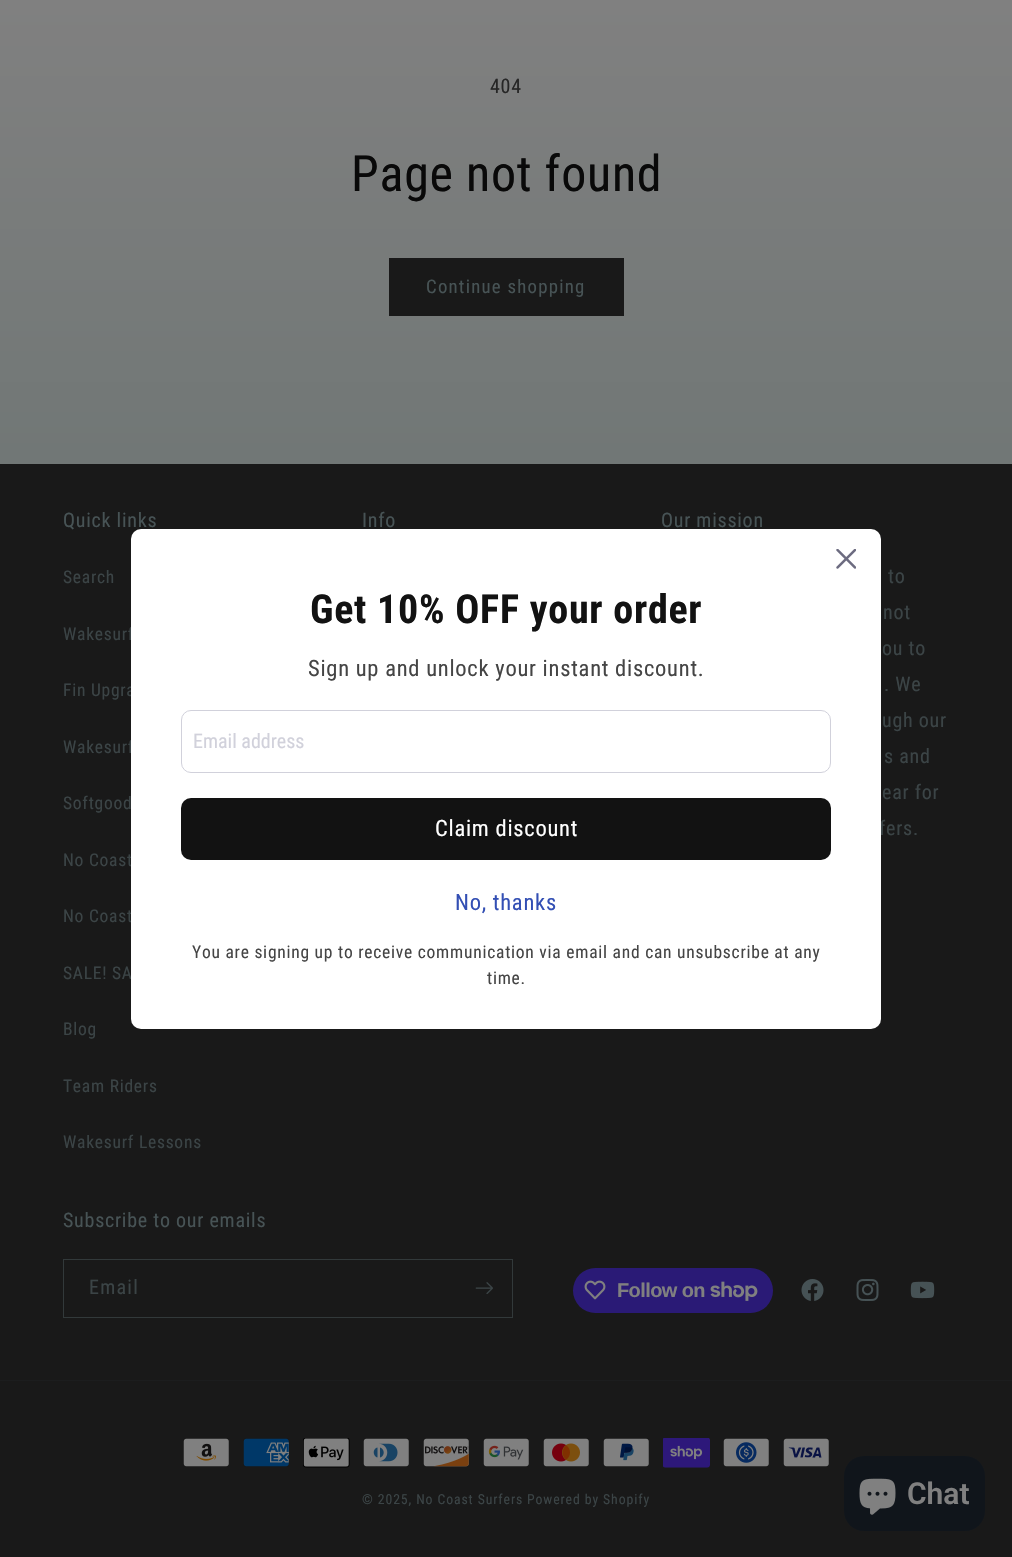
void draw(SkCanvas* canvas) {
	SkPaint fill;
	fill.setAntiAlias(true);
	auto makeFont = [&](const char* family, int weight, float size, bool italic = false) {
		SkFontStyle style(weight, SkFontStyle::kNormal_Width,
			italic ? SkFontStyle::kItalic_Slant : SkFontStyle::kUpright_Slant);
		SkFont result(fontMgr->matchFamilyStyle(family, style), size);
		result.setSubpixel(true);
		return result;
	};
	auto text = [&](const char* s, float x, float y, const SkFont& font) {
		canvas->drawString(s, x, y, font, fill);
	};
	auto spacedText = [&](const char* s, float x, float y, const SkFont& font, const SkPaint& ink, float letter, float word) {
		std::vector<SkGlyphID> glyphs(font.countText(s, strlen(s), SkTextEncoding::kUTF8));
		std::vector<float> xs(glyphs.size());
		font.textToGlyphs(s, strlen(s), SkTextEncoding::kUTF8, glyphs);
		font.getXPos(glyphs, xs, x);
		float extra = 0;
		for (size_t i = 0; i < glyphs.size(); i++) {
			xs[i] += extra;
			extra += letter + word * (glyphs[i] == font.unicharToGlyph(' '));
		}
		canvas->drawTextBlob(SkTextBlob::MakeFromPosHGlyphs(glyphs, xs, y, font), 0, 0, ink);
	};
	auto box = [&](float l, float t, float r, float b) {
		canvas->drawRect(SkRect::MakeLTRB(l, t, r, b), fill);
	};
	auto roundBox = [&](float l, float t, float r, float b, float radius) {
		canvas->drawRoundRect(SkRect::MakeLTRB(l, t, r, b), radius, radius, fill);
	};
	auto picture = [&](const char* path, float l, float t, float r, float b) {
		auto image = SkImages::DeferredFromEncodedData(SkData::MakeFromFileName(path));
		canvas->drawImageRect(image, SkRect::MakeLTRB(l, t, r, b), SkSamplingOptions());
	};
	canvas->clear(0xFFFFFFFF);
	{
		const SkColor colors[] = {0xFF808080, 0xFF67716F, 0xFF475355};
		const float stops[] = {0, 0.49f, 1};
		const SkPoint ends[] = {{506, 0}, {506, 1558}};
		fill.setShader(SkGradientShader::MakeLinear(ends, colors, stops, 3, SkTileMode::kClamp));
		fill.setAlpha(255);
	}
	box(0, 0, 1012, 464);
	fill.setShader(nullptr);
	fill.setColor(0xFF191919);
	box(389, 258, 624, 316);
	box(0, 464, 1012, 1557);
	fill.setStyle(SkPaint::kStroke_Style);
	fill.setStrokeWidth(1);
	fill.setColor(0xFF32393A);
	canvas->drawRect(SkRect::MakeLTRB(63.5f, 1259.5f, 512.5f, 1317.5f), fill);
	picture("image0.png", 475, 1282, 493, 1294);
	fill.setStyle(SkPaint::kFill_Style);
	fill.setColor(0xFF2A1A76);
	roundBox(573, 1268, 773, 1313, 22.5f);
	picture("image1.png", 584, 1280, 606, 1300);
	picture("image2.png", 710, 1281, 758, 1301);
	picture("image3.png", 801, 1279, 824, 1301);
	picture("image4.png", 856, 1279, 879, 1301);
	picture("image5.png", 910, 1281, 935, 1299);
	fill.setColor(0xFF1C1D1E);
	box(0, 1380, 1012, 1381);
	picture("image6.png", 183, 1438, 229, 1467);
	picture("image7.png", 243, 1438, 289, 1467);
	picture("image8.png", 303, 1438, 350, 1468);
	picture("image9.png", 363, 1438, 409, 1467);
	picture("image10.png", 423, 1438, 469, 1467);
	picture("image11.png", 483, 1438, 529, 1467);
	picture("image12.png", 543, 1438, 589, 1467);
	picture("image13.png", 603, 1438, 649, 1467);
	picture("image14.png", 663, 1438, 710, 1468);
	picture("image15.png", 723, 1438, 769, 1467);
	picture("image16.png", 783, 1438, 829, 1467);
	fill.setColor(0xFF10151B);
	roundBox(844, 1456, 985, 1531, 20);
	picture("image18.png", 859, 1478, 896, 1515);
	auto font1 = makeFont("Roboto Condensed", 400, 20);
	fill.setColor(0xFF262626);
	spacedText("404", 490, 93, font1, fill, 0.75f, 0);
	auto font2 = makeFont("Roboto Condensed", 400, 50);
	fill.setColor(0xFF090909);
	spacedText("Page not found", 351, 191, font2, fill, 0.75f, 0);
	auto font3 = makeFont("Roboto Condensed", 400, 18.75f);
	fill.setColor(0xFF475355);
	spacedText("Continue shopping", 426, 293, font3, fill, 1.25f, 0);
	spacedText("Quick links", 63, 527, font1, fill, 0.75f, 0);
	auto font4 = makeFont("Roboto Condensed", 400, 17.5f);
	fill.setColor(0xFF3B4446);
	spacedText("Search", 63, 583, font4, fill, 0.75f, 0);
	spacedText("Wakesurf", 63, 640, font4, fill, 0.75f, 0);
	spacedText("Fin Upgra", 63, 696, font4, fill, 0.75f, 0);
	spacedText("Wakesurf", 63, 753, font4, fill, 0.75f, 0);
	spacedText("Softgood", 63, 809, font4, fill, 0.75f, 0);
	spacedText("No Coast", 63, 866, font4, fill, 0.75f, 0);
	spacedText("No Coast", 63, 922, font4, fill, 0.75f, 0);
	spacedText("SALE! SA", 63, 979, font4, fill, 0.75f, 0);
	spacedText("Blog", 63, 1035, font4, fill, 0.75f, 0);
	spacedText("Team Riders", 63, 1092, font4, fill, 0.75f, 0);
	spacedText("Wakesurf Lessons", 63, 1148, font4, fill, 0.75f, 0);
	fill.setColor(0xFF475355);
	spacedText("Info", 362, 527, font1, fill, 0.75f, 0);
	spacedText("Our mission", 661, 527, font1, fill, 0.75f, 0);
	fill.setColor(0xFF3B4446);
	spacedText("to", 888, 583, font1, fill, 0.75f, 0);
	spacedText("not", 883, 619, font1, fill, 0.75f, 0);
	spacedText("ou to", 882, 655, font1, fill, 0.75f, 0);
	spacedText(". We", 884, 691, font1, fill, 0.75f, 0);
	spacedText("ugh our", 882, 727, font1, fill, 0.75f, 0);
	spacedText("s and", 884, 763, font1, fill, 0.75f, 0);
	spacedText("ear for", 882, 799, font1, fill, 0.75f, 0);
	spacedText("fers.", 879, 835, font1, fill, 0.75f, 0);
	fill.setColor(0xFF475355);
	spacedText("Subscribe to our emails", 63, 1227, font1, fill, 0.75f, 0);
	fill.setColor(0xFF3B4446);
	spacedText("Email", 89, 1294, font1, fill, 1.25f, 0);
	auto font5 = makeFont("Liberation Sans", 700, 20);
	fill.setColor(0xFF808080);
	spacedText("Follow on", 617, 1297, font5, fill, -0.6f, 0);
	auto font6 = makeFont("Roboto Condensed", 400, 13.75f);
	fill.setColor(0xFF3B4446);
	spacedText("© 2025, No Coast Surfers", 362, 1504, font6, fill, 0.9f, 0);
	spacedText("Powered by Shopify", 527, 1504, font6, fill, 0.9f, 0);
	fill.setColor(0xFFFFFFFF);
	roundBox(131, 529, 881, 1029, 10);
	picture("image17.png", 836, 549, 856, 569);
	auto font7 = makeFont("Roboto Condensed", 700, 40);
	fill.setColor(0xFF121212);
	spacedText("Get 10% OFF your order", 310, 623, font7, fill, 0.75f, 0);
	auto font8 = makeFont("Roboto Condensed", 400, 22.5f);
	fill.setColor(0xFF454545);
	spacedText("Sign up and unlock your instant discount.", 308, 676, font8, fill, 0.75f, 0);
	fill.setStyle(SkPaint::kStroke_Style);
	fill.setColor(0xFFD1D1DB);
	canvas->drawRoundRect(SkRect::MakeLTRB(181.5f, 710.5f, 830.5f, 772.5f), 9.5f, 9.5f, fill);
	fill.setStyle(SkPaint::kFill_Style);
	text("Email address", 193, 748, font1);
	fill.setColor(0xFF121212);
	roundBox(181, 798, 831, 860, 10);
	fill.setColor(0xFFFFFFFF);
	spacedText("Claim discount", 435, 836, font8, fill, 0.75f, 0);
	fill.setColor(0xFF334FB4);
	spacedText("No, thanks", 455, 910, font8, fill, 0.75f, 0);
	fill.setColor(0xFF454545);
	spacedText("You are signing up to receive communication via email and can unsubscribe at any", 192, 958, font4, fill, 0.75f, 0);
	spacedText("time.", 487, 984, font4, fill, 0.75f, 0);
	auto font9 = makeFont("Roboto", 600, 30);
	fill.setColor(0xFF808080);
	text("Chat", 907, 1504, font9);
}
